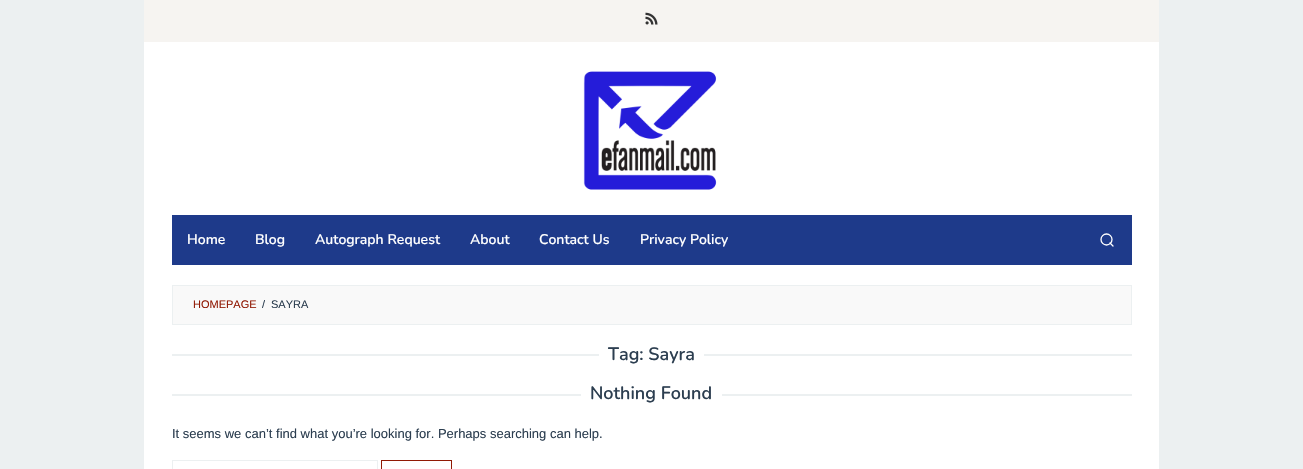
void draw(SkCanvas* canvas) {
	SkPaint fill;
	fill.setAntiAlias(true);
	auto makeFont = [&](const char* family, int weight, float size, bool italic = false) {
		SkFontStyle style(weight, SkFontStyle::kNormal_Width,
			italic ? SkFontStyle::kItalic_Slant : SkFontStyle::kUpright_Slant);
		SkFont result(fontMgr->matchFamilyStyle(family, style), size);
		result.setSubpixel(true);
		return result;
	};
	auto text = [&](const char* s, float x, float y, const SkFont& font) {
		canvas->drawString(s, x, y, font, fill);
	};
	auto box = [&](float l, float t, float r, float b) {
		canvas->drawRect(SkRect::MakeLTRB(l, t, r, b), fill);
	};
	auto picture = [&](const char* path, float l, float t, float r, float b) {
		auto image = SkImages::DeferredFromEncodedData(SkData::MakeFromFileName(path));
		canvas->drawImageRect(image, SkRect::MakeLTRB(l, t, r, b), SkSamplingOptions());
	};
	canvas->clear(0xFFECF0F1);
	fill.setColor(0xFFFFFFFF);
	box(144, 42, 1159, 215);
	fill.setColor(0xFFF6F4F1);
	box(144, 0, 1159, 42);
	picture("image0.png", 645, 12, 658, 25);
	picture("image1.png", 583, 71, 717, 190);
	fill.setColor(0xFFFFFFFF);
	box(144, 215, 1159, 469);
	fill.setColor(0xFF1E3A8A);
	box(172, 215, 1132, 265);
	fill.setStyle(SkPaint::kStroke_Style);
	fill.setStrokeWidth(1.3f);
	fill.setColor(0xFFFFFFFF);
	canvas->drawCircle(1106.5f, 239.5f, 5.5f, fill);
	fill.setStrokeCap(SkPaint::kRound_Cap);
	fill.setStrokeJoin(SkPaint::kRound_Join);
	canvas->drawPath(SkPathBuilder().moveTo(1113, 246).lineTo(1110, 243).detach(), fill);
	fill.setStyle(SkPaint::kFill_Style);
	fill.setColor(0xFFF9F9F9);
	canvas->drawRect(SkRect::MakeLTRB(172.5f, 285.5f, 1131.5f, 324.5f), fill);
	fill.setStyle(SkPaint::kStroke_Style);
	fill.setStrokeWidth(1);
	fill.setStrokeCap(SkPaint::kButt_Cap);
	fill.setStrokeJoin(SkPaint::kMiter_Join);
	fill.setColor(0xFFECF0F1);
	canvas->drawRect(SkRect::MakeLTRB(172.5f, 285.5f, 1131.5f, 324.5f), fill);
	fill.setStyle(SkPaint::kFill_Style);
	box(172, 354, 599, 356);
	box(704, 354, 1132, 356);
	box(172, 394, 581, 396);
	box(722, 394, 1132, 396);
	fill.setStyle(SkPaint::kStroke_Style);
	canvas->drawRect(SkRect::MakeLTRB(172.5f, 460.5f, 377.5f, 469.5f), fill);
	fill.setColor(0xFF911A05);
	canvas->drawRect(SkRect::MakeLTRB(381.5f, 460.5f, 451.5f, 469.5f), fill);
	auto font1 = makeFont("Nunito", 600, 14);
	fill.setStyle(SkPaint::kFill_Style);
	fill.setColor(0xFFFFFFFF);
	text("Home", 187, 244, font1);
	text("Blog", 255, 244, font1);
	text("Autograph Request", 315, 244, font1);
	text("About", 470, 244, font1);
	text("Contact Us", 539, 244, font1);
	text("Privacy Policy", 640, 244, font1);
	auto font2 = makeFont("Liberation Sans", 400, 11);
	fill.setColor(0xFF911A05);
	text("HOMEPAGE", 193, 308, font2);
	fill.setColor(0xFF2C3E50);
	text("/", 262, 308, font2);
	text("SAYRA", 271, 308, font2);
	auto font3 = makeFont("Nunito", 600, 18);
	text("Tag: Sayra", 608, 360, font3);
	text("Nothing Found", 590, 399, font3);
	auto font4 = makeFont("Liberation Sans", 400, 13);
	text("It seems we can’t find what you’re looking for. Perhaps searching can help.", 172, 438, font4);
}
